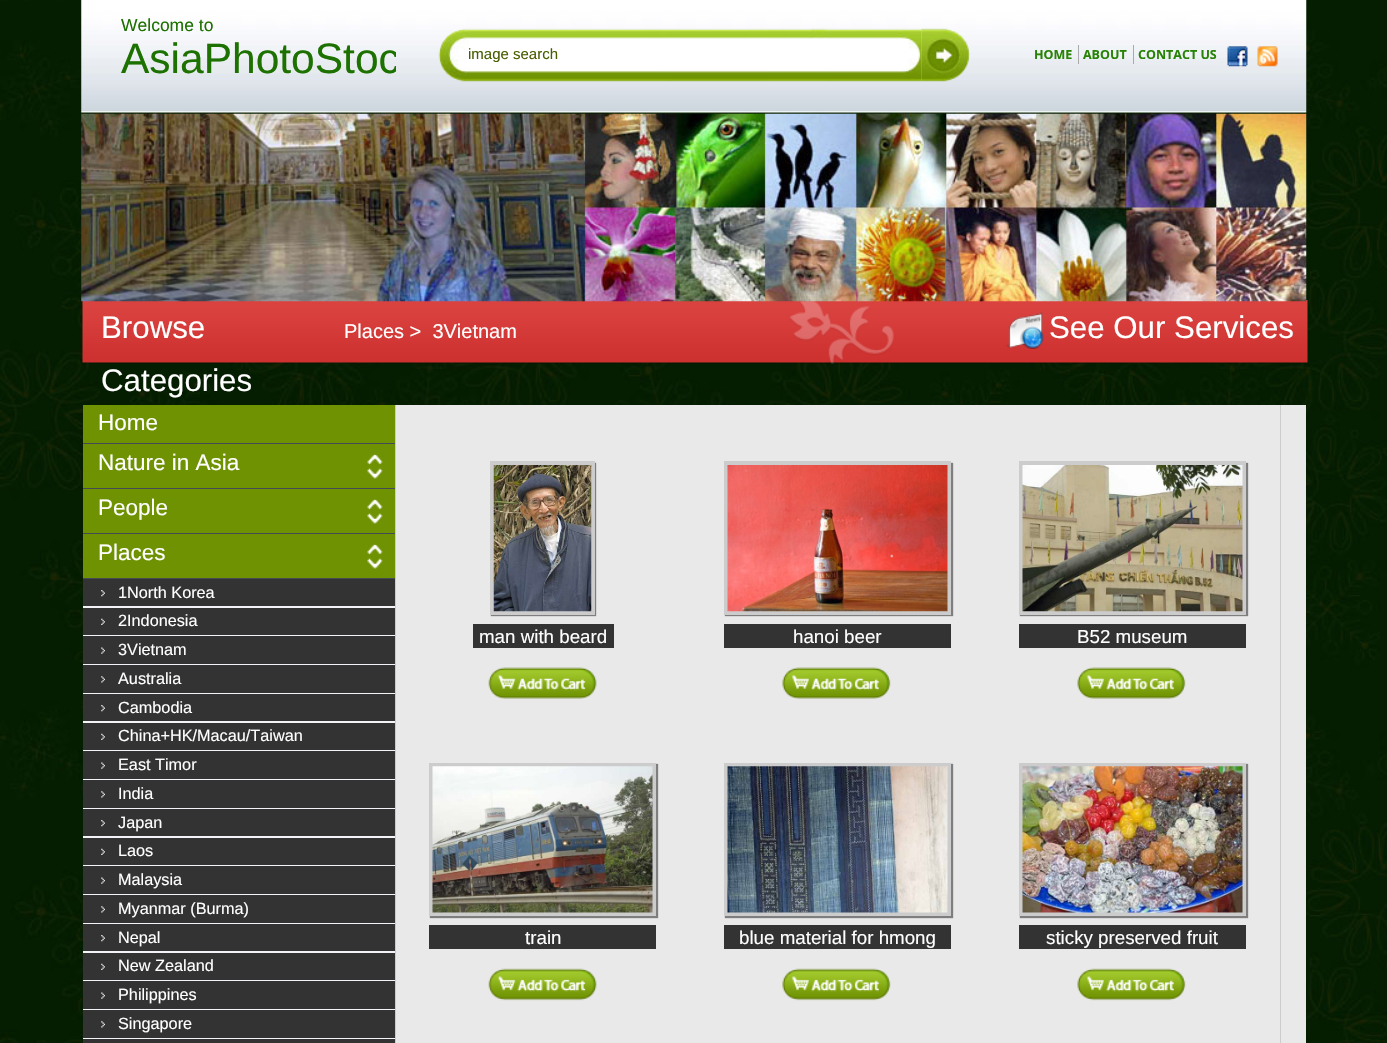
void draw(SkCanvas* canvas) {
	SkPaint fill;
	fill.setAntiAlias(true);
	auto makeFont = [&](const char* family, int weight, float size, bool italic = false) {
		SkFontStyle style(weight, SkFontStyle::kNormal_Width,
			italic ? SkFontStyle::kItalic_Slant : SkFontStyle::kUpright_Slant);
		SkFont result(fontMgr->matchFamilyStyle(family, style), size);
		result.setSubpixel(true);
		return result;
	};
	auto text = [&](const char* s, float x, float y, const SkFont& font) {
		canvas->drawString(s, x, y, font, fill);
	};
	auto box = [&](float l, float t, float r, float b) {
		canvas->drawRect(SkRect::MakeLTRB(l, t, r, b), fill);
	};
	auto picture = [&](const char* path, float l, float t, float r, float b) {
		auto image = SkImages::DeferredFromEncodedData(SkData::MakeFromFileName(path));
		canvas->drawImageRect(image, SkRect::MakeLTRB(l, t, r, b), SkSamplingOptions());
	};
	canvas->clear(0xFFFFFFFF);
	picture("image0.png", 0, 0, 1387, 1043);
	picture("image1.png", 624, 112, 1049, 114);
	picture("image2.png", 81, 0, 1307, 113);
	picture("image3.png", 438, 28, 922, 82);
	picture("image4.png", 921, 28, 970, 82);
	fill.setColor(0xFFAAAAAA);
	box(1078, 45, 1079, 64);
	box(1133, 45, 1134, 64);
	picture("image5.png", 1227, 46, 1248, 67);
	picture("image6.png", 1257, 46, 1278, 67);
	picture("image8.png", 82, 300, 1308, 364);
	picture("image7.png", 81, 113, 1307, 302);
	picture("image9.png", 1006, 312, 1044, 349);
	fill.setColor(0xFFE9E9E9);
	box(396, 405, 1306, 1043);
	fill.setColor(0xFF454B54);
	box(83, 443, 395, 579);
	fill.setColor(0xFF6F9203);
	box(83, 405, 395, 443);
	box(83, 444, 395, 488);
	picture("image10.png", 367, 454, 383, 479);
	box(83, 489, 395, 533);
	picture("image10.png", 367, 499, 383, 524);
	box(83, 534, 395, 578);
	picture("image10.png", 367, 544, 383, 569);
	fill.setColor(0xFFF4F4F8);
	box(83, 606, 395, 1039);
	fill.setColor(0xFF333333);
	box(83, 579, 395, 606);
	picture("image11.png", 101, 590, 105, 597);
	box(83, 608, 395, 635);
	picture("image12.png", 101, 618, 105, 625);
	box(83, 636, 395, 664);
	picture("image13.png", 101, 647, 105, 654);
	box(83, 665, 395, 693);
	picture("image14.png", 101, 676, 105, 683);
	box(83, 694, 395, 721);
	picture("image11.png", 101, 705, 105, 712);
	box(83, 723, 395, 750);
	picture("image12.png", 101, 733, 105, 740);
	box(83, 751, 395, 779);
	picture("image13.png", 101, 762, 105, 769);
	box(83, 780, 395, 808);
	picture("image14.png", 101, 791, 105, 798);
	box(83, 809, 395, 836);
	picture("image11.png", 101, 820, 105, 827);
	box(83, 838, 395, 865);
	picture("image12.png", 101, 848, 105, 855);
	box(83, 866, 395, 894);
	picture("image13.png", 101, 877, 105, 884);
	box(83, 895, 395, 923);
	picture("image14.png", 101, 906, 105, 913);
	box(83, 924, 395, 951);
	picture("image11.png", 101, 935, 105, 942);
	box(83, 953, 395, 980);
	picture("image12.png", 101, 963, 105, 970);
	box(83, 981, 395, 1009);
	picture("image13.png", 101, 992, 105, 999);
	box(83, 1010, 395, 1038);
	picture("image14.png", 101, 1021, 105, 1028);
	box(83, 1039, 395, 1043);
	canvas->save();
	canvas->clipRect(SkRect::MakeLTRB(83, 405, 1306, 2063));
	fill.setStyle(SkPaint::kStroke_Style);
	fill.setStrokeWidth(1);
	fill.setColor(0xFFCCCCCC);
	canvas->drawRect(SkRect::MakeLTRB(395.5f, 404.5f, 1280.5f, 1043.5f), fill);
	canvas->restore();
	fill.setStyle(SkPaint::kFill_Style);
	fill.setColor(0xFF7E7E7E);
	fill.setMaskFilter(SkMaskFilter::MakeBlur(kNormal_SkBlurStyle, 0.5f));
	canvas->drawRect(SkRect::MakeLTRB(491, 463, 596, 616), fill);
	fill.setMaskFilter(nullptr);
	fill.setStyle(SkPaint::kStroke_Style);
	fill.setStrokeWidth(4);
	fill.setColor(0xFFCCCCCC);
	canvas->drawRect(SkRect::MakeLTRB(492, 463, 593, 613), fill);
	picture("image15.png", 493, 465, 592, 612);
	fill.setStyle(SkPaint::kFill_Style);
	fill.setColor(0xFF333333);
	box(473, 624, 614, 648);
	picture("image16.png", 488, 667, 597, 699);
	fill.setColor(0xFF7E7E7E);
	fill.setMaskFilter(SkMaskFilter::MakeBlur(kNormal_SkBlurStyle, 0.5f));
	canvas->drawRect(SkRect::MakeLTRB(725, 463, 953, 616), fill);
	fill.setMaskFilter(nullptr);
	fill.setStyle(SkPaint::kStroke_Style);
	fill.setColor(0xFFCCCCCC);
	canvas->drawRect(SkRect::MakeLTRB(726, 463, 949, 613), fill);
	picture("image17.png", 727, 465, 948, 612);
	fill.setStyle(SkPaint::kFill_Style);
	fill.setColor(0xFF333333);
	box(724, 624, 951, 648);
	picture("image18.png", 782, 667, 891, 699);
	fill.setColor(0xFF7E7E7E);
	fill.setMaskFilter(SkMaskFilter::MakeBlur(kNormal_SkBlurStyle, 0.5f));
	canvas->drawRect(SkRect::MakeLTRB(1020, 463, 1248, 616), fill);
	fill.setMaskFilter(nullptr);
	fill.setStyle(SkPaint::kStroke_Style);
	fill.setColor(0xFFCCCCCC);
	canvas->drawRect(SkRect::MakeLTRB(1021, 463, 1244, 613), fill);
	picture("image19.png", 1022, 465, 1243, 612);
	fill.setStyle(SkPaint::kFill_Style);
	fill.setColor(0xFF333333);
	box(1019, 624, 1246, 648);
	picture("image20.png", 1077, 667, 1186, 699);
	fill.setColor(0xFF7E7E7E);
	fill.setMaskFilter(SkMaskFilter::MakeBlur(kNormal_SkBlurStyle, 0.5f));
	canvas->drawRect(SkRect::MakeLTRB(430, 764, 658, 918), fill);
	fill.setMaskFilter(nullptr);
	fill.setStyle(SkPaint::kStroke_Style);
	fill.setColor(0xFFCCCCCC);
	canvas->drawRect(SkRect::MakeLTRB(431, 765, 654, 914), fill);
	picture("image21.png", 432, 766, 653, 913);
	fill.setStyle(SkPaint::kFill_Style);
	fill.setColor(0xFF333333);
	box(429, 925, 656, 949);
	picture("image22.png", 488, 968, 597, 1001);
	fill.setColor(0xFF7E7E7E);
	fill.setMaskFilter(SkMaskFilter::MakeBlur(kNormal_SkBlurStyle, 0.5f));
	canvas->drawRect(SkRect::MakeLTRB(725, 764, 953, 918), fill);
	fill.setMaskFilter(nullptr);
	fill.setStyle(SkPaint::kStroke_Style);
	fill.setColor(0xFFCCCCCC);
	canvas->drawRect(SkRect::MakeLTRB(726, 765, 949, 914), fill);
	picture("image23.png", 727, 766, 948, 913);
	fill.setStyle(SkPaint::kFill_Style);
	fill.setColor(0xFF333333);
	box(724, 925, 951, 949);
	picture("image24.png", 782, 968, 891, 1001);
	fill.setColor(0xFF7E7E7E);
	fill.setMaskFilter(SkMaskFilter::MakeBlur(kNormal_SkBlurStyle, 0.5f));
	canvas->drawRect(SkRect::MakeLTRB(1020, 764, 1248, 918), fill);
	fill.setMaskFilter(nullptr);
	fill.setStyle(SkPaint::kStroke_Style);
	fill.setColor(0xFFCCCCCC);
	canvas->drawRect(SkRect::MakeLTRB(1021, 765, 1244, 914), fill);
	picture("image25.png", 1022, 766, 1243, 913);
	fill.setStyle(SkPaint::kFill_Style);
	fill.setColor(0xFF333333);
	box(1019, 925, 1246, 949);
	picture("image26.png", 1077, 968, 1186, 1001);
	auto font1 = makeFont("Liberation Sans", 400, 17.5f);
	fill.setColor(0xFF1C7100);
	text("Welcome to", 121, 31, font1);
	canvas->save();
	canvas->clipRect(SkRect::MakeLTRB(121, 41, 396, 86));
	auto font2 = makeFont("Liberation Sans", 400, 42.5f);
	text("AsiaPhotoStoc", 121, 73, font2);
	canvas->restore();
	auto font3 = makeFont("Liberation Sans", 400, 15);
	fill.setColor(0xFF475E00);
	text("image search", 468, 59, font3);
	auto font4 = makeFont("Open Sans", 700, 12.5f);
	fill.setColor(0xFF278205);
	text("HOME", 1034, 59, font4);
	text("ABOUT", 1083, 59, font4);
	text("CONTACT US", 1138, 59, font4);
	auto font5 = makeFont("Liberation Sans", 400, 31.25f);
	fill.setColor(0xFFFFFFFF);
	text("Browse", 101, 338, font5);
	text("Categories", 101, 391, font5);
	auto font6 = makeFont("Liberation Sans", 400, 20);
	text("Places >  3Vietnam", 344, 338, font6);
	text("See Our Services", 1049, 338, font5);
	auto font7 = makeFont("Liberation Sans", 400, 22.5f);
	text("Home", 98, 430, font7);
	text("Nature in Asia", 98, 470, font7);
	text("People", 98, 515, font7);
	text("Places", 98, 560, font7);
	auto font8 = makeFont("Liberation Sans", 400, 16.25f);
	text("1North Korea", 118, 598, font8);
	text("2Indonesia", 118, 626, font8);
	text("3Vietnam", 118, 655, font8);
	text("Australia", 118, 684, font8);
	text("Cambodia", 118, 713, font8);
	text("China+HK/Macau/Taiwan", 118, 741, font8);
	text("East Timor", 118, 770, font8);
	text("India", 118, 799, font8);
	text("Japan", 118, 828, font8);
	text("Laos", 118, 856, font8);
	text("Malaysia", 118, 885, font8);
	text("Myanmar (Burma)", 118, 914, font8);
	text("Nepal", 118, 943, font8);
	text("New Zealand", 118, 971, font8);
	text("Philippines", 118, 1000, font8);
	text("Singapore", 118, 1029, font8);
	auto font9 = makeFont("Liberation Sans", 400, 18.75f);
	text("man with beard", 479, 643, font9);
	text("hanoi beer", 793, 643, font9);
	text("B52 museum", 1077, 643, font9);
	text("train", 525, 944, font9);
	text("blue material for hmong", 739, 944, font9);
	text("sticky preserved fruit", 1046, 944, font9);
}
